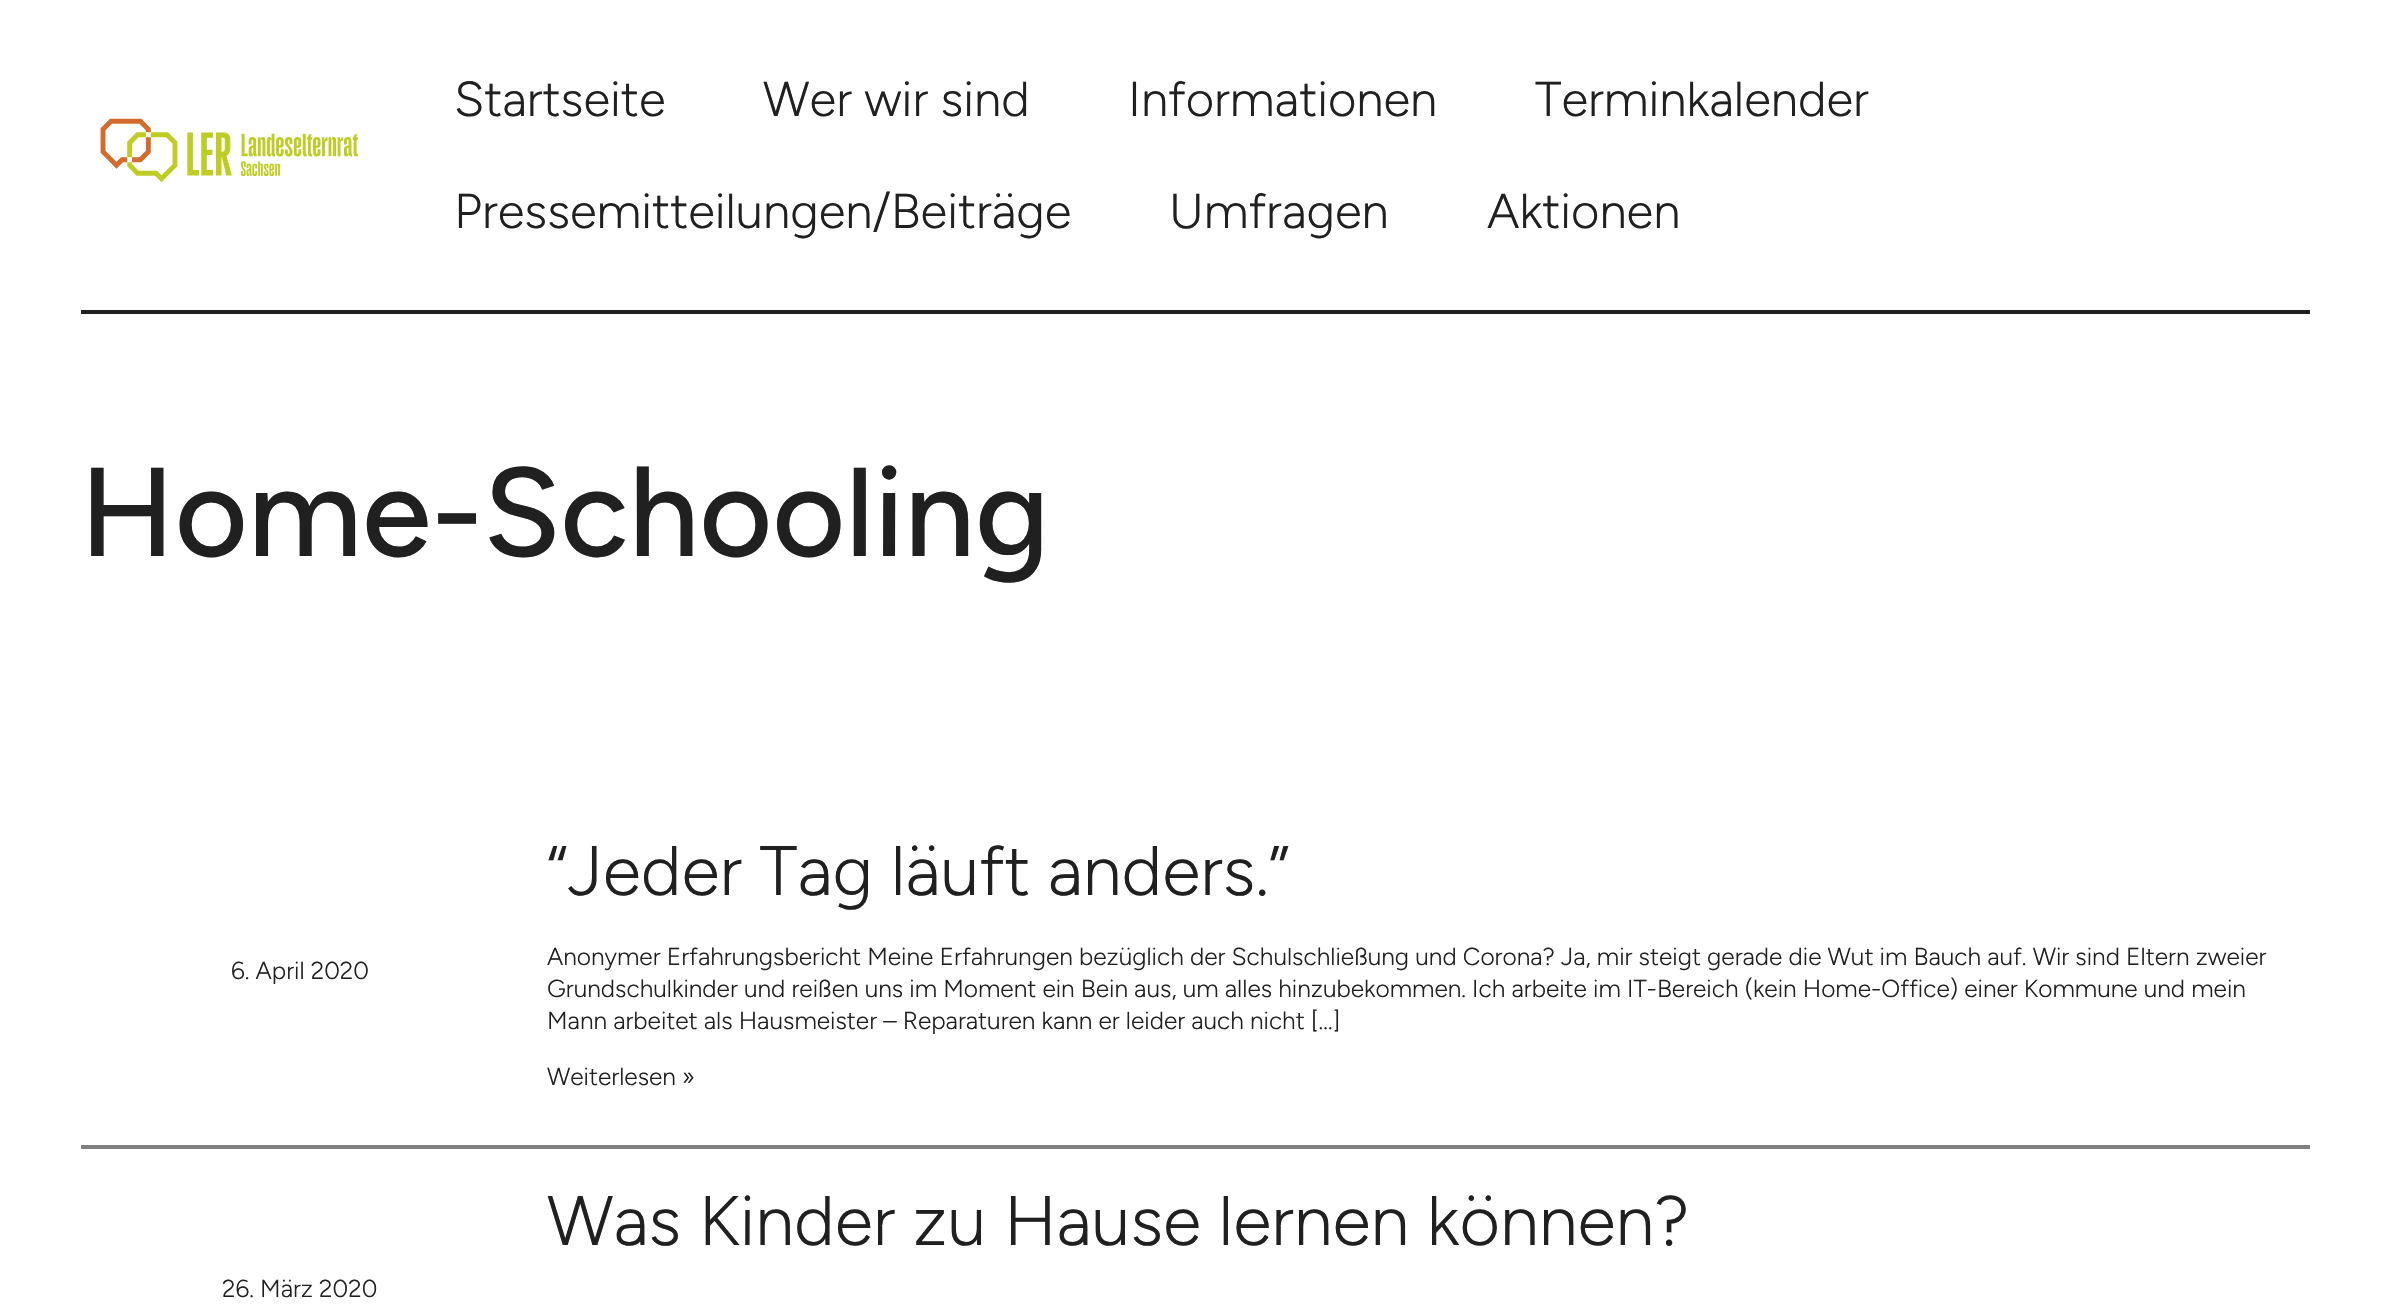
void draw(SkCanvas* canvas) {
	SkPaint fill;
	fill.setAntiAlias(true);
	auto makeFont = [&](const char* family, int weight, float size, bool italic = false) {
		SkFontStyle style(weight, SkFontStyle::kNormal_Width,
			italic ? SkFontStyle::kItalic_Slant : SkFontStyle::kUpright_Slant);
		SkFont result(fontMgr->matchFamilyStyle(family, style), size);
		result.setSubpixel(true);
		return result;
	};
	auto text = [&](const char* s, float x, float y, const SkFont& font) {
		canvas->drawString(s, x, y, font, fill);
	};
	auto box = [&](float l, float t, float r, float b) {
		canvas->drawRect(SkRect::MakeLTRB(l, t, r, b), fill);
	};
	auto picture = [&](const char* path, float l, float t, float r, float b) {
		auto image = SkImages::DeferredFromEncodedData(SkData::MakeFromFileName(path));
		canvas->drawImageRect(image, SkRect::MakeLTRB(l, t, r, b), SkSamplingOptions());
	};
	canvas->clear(0xFFFFFFFF);
	fill.setColor(0xFF202020);
	box(81, 310, 2310, 314);
	picture("image0.png", 100, 118, 358, 183);
	fill.setColor(0xFF808080);
	box(81, 1145, 2310, 1149);
	auto font1 = makeFont("Figtree", 300, 49);
	fill.setColor(0xFF202020);
	text("Startseite", 454, 116, font1);
	text("Wer wir sind", 763, 116, font1);
	text("Informationen", 1128, 116, font1);
	text("Terminkalender", 1535, 116, font1);
	text("Pressemitteilungen/Beiträge", 454, 228, font1);
	text("Umfragen", 1169, 228, font1);
	text("Aktionen", 1487, 228, font1);
	auto font2 = makeFont("Figtree", 500, 126);
	text("Home-Schooling", 80, 556, font2);
	auto font3 = makeFont("Figtree", 300, 24.5f);
	text("6. April 2020", 231, 979, font3);
	auto font4 = makeFont("Figtree", 300, 70);
	text("“Jeder Tag läuft anders.”", 547, 895, font4);
	text("Anonymer Erfahrungsbericht Meine Erfahrungen bezüglich der Schulschließung und Corona? Ja, mir steigt gerade die Wut im Bauch auf. Wir sind Eltern zweier", 547, 965, font3);
	text("Grundschulkinder und reißen uns im Moment ein Bein aus, um alles hinzubekommen. Ich arbeite im IT-Bereich (kein Home-Office) einer Kommune und mein", 547, 997, font3);
	text("Mann arbeitet als Hausmeister – Reparaturen kann er leider auch nicht […]", 547, 1029, font3);
	text("Weiterlesen »", 547, 1085, font3);
	text("Was Kinder zu Hause lernen können?", 547, 1245, font4);
	text("26. März 2020", 222, 1297, font3);
}
